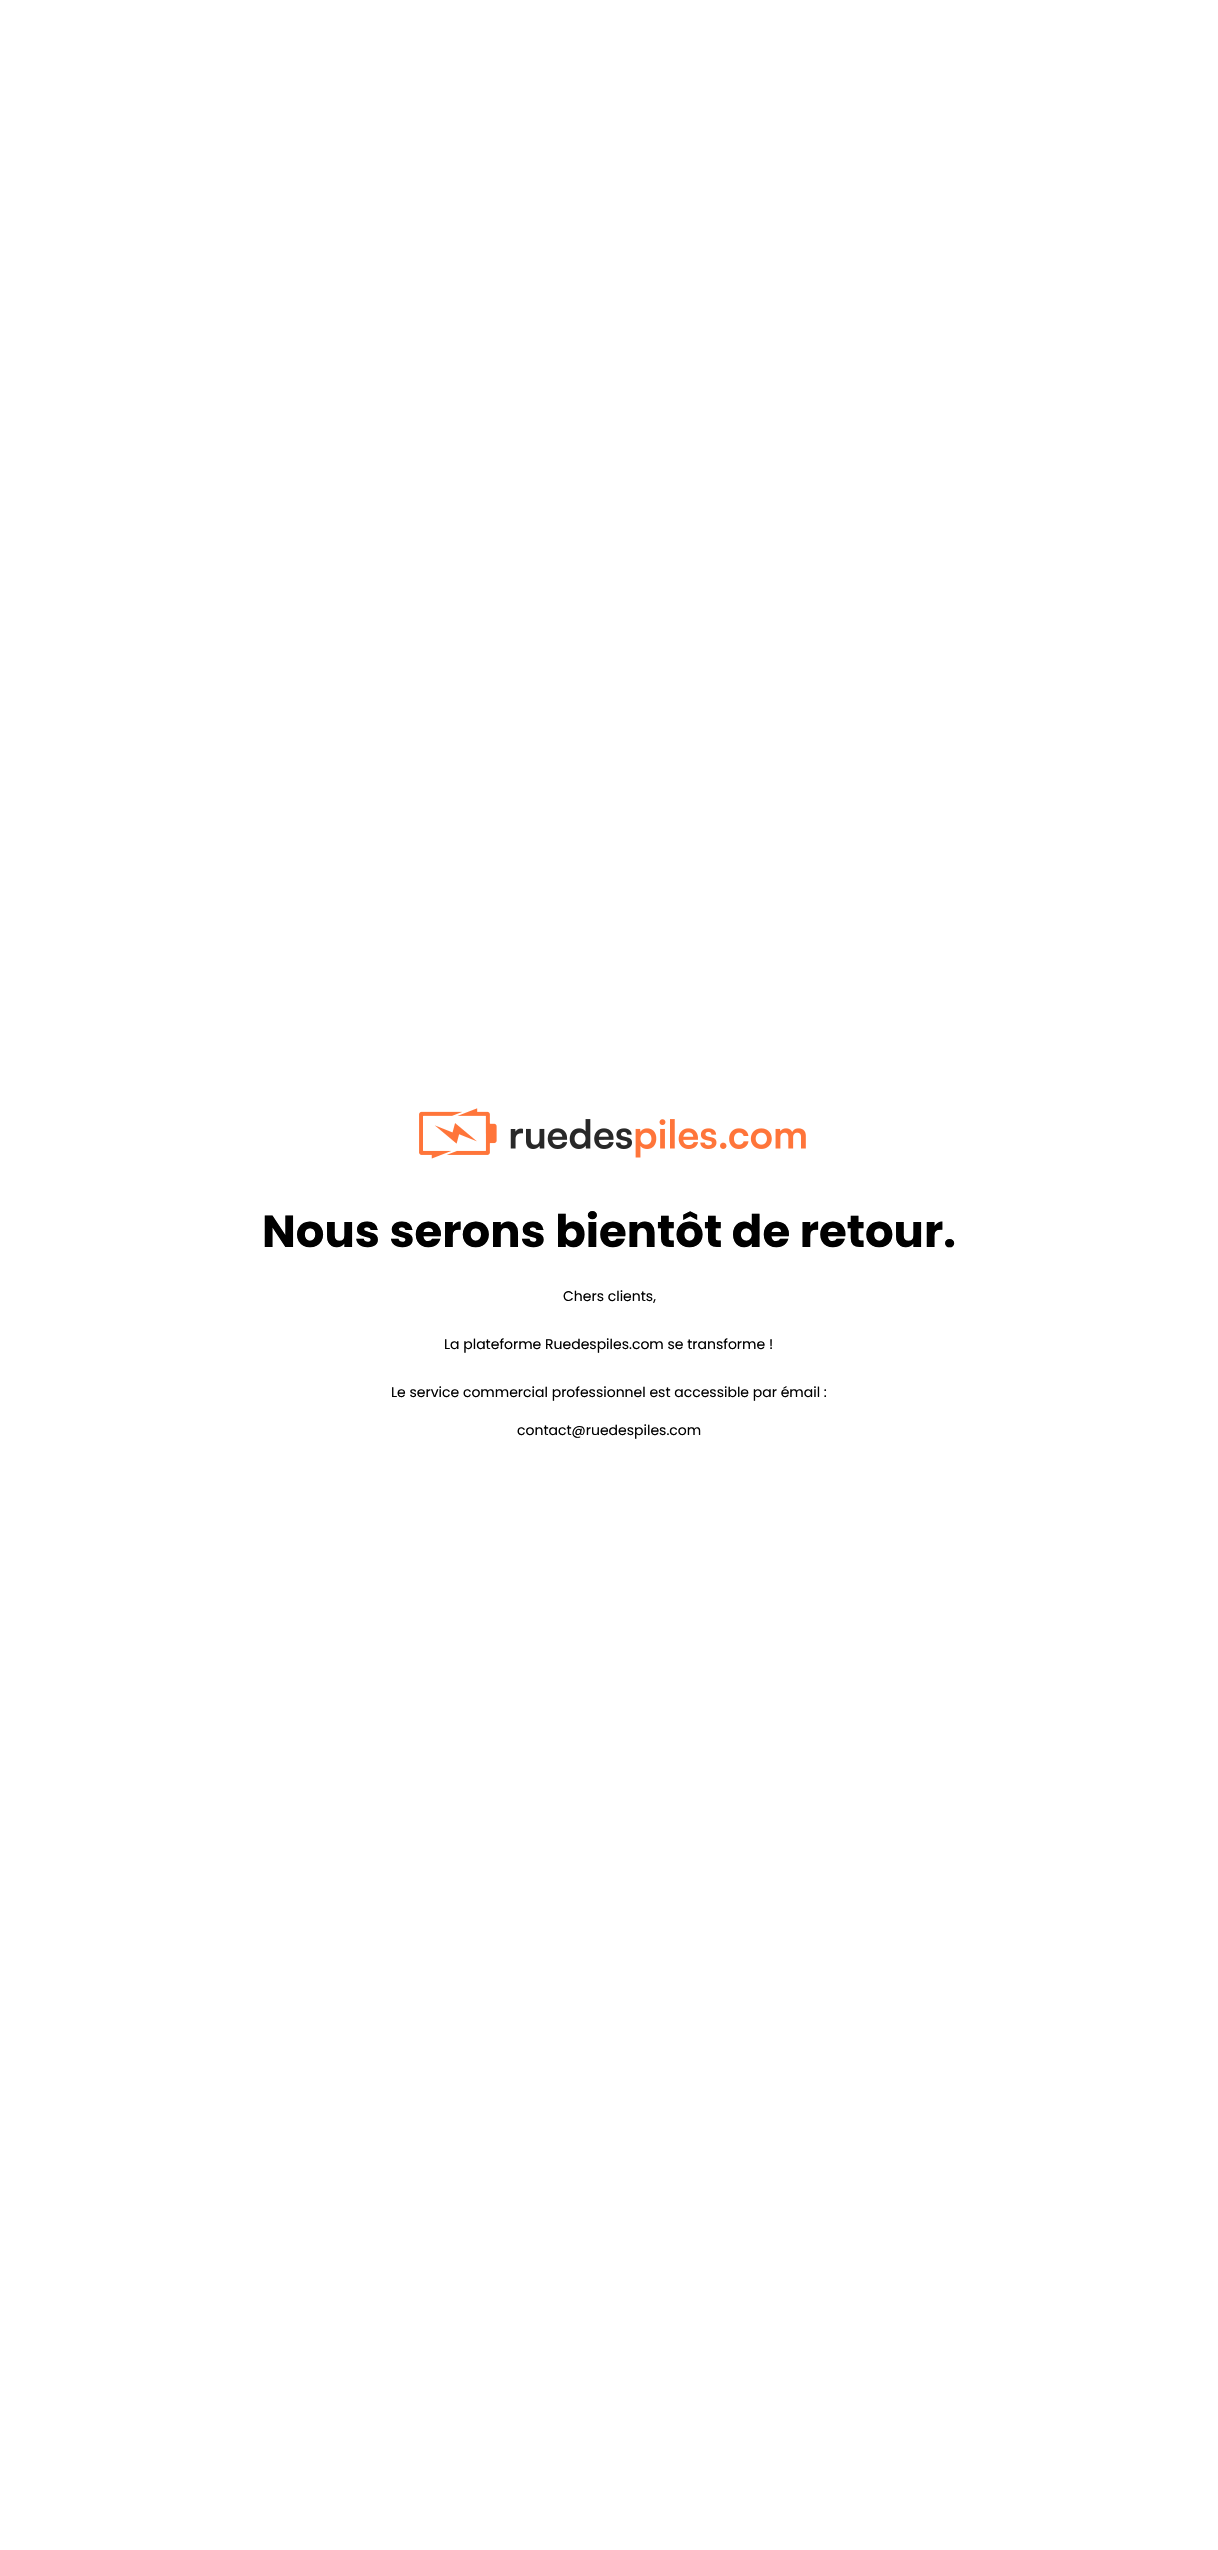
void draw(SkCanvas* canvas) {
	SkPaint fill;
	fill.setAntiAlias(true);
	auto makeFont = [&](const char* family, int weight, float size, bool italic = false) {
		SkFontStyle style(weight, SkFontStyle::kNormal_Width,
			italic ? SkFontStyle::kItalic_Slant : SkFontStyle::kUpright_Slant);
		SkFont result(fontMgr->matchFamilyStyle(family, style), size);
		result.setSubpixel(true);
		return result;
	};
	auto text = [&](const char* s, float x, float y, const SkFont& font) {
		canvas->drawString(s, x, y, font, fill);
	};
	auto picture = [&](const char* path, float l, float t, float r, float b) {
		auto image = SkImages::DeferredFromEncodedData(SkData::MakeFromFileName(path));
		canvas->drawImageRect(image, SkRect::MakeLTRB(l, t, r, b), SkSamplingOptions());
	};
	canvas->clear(0xFFFFFFFF);
	picture("image0.png", 419, 1108, 806, 1159);
	auto font1 = makeFont("Poppins", 700, 45);
	fill.setColor(0xFF000000);
	text("Nous serons bientôt de retour.", 262, 1247, font1);
	auto font2 = makeFont("Poppins", 400, 14);
	text("Chers clients,", 563, 1301, font2);
	text("La plateforme Ruedespiles.com se transforme !", 444, 1349, font2);
	text("Le service commercial professionnel est accessible par émail :", 391, 1397, font2);
	text("contact@ruedespiles.com", 517, 1435, font2);
}
